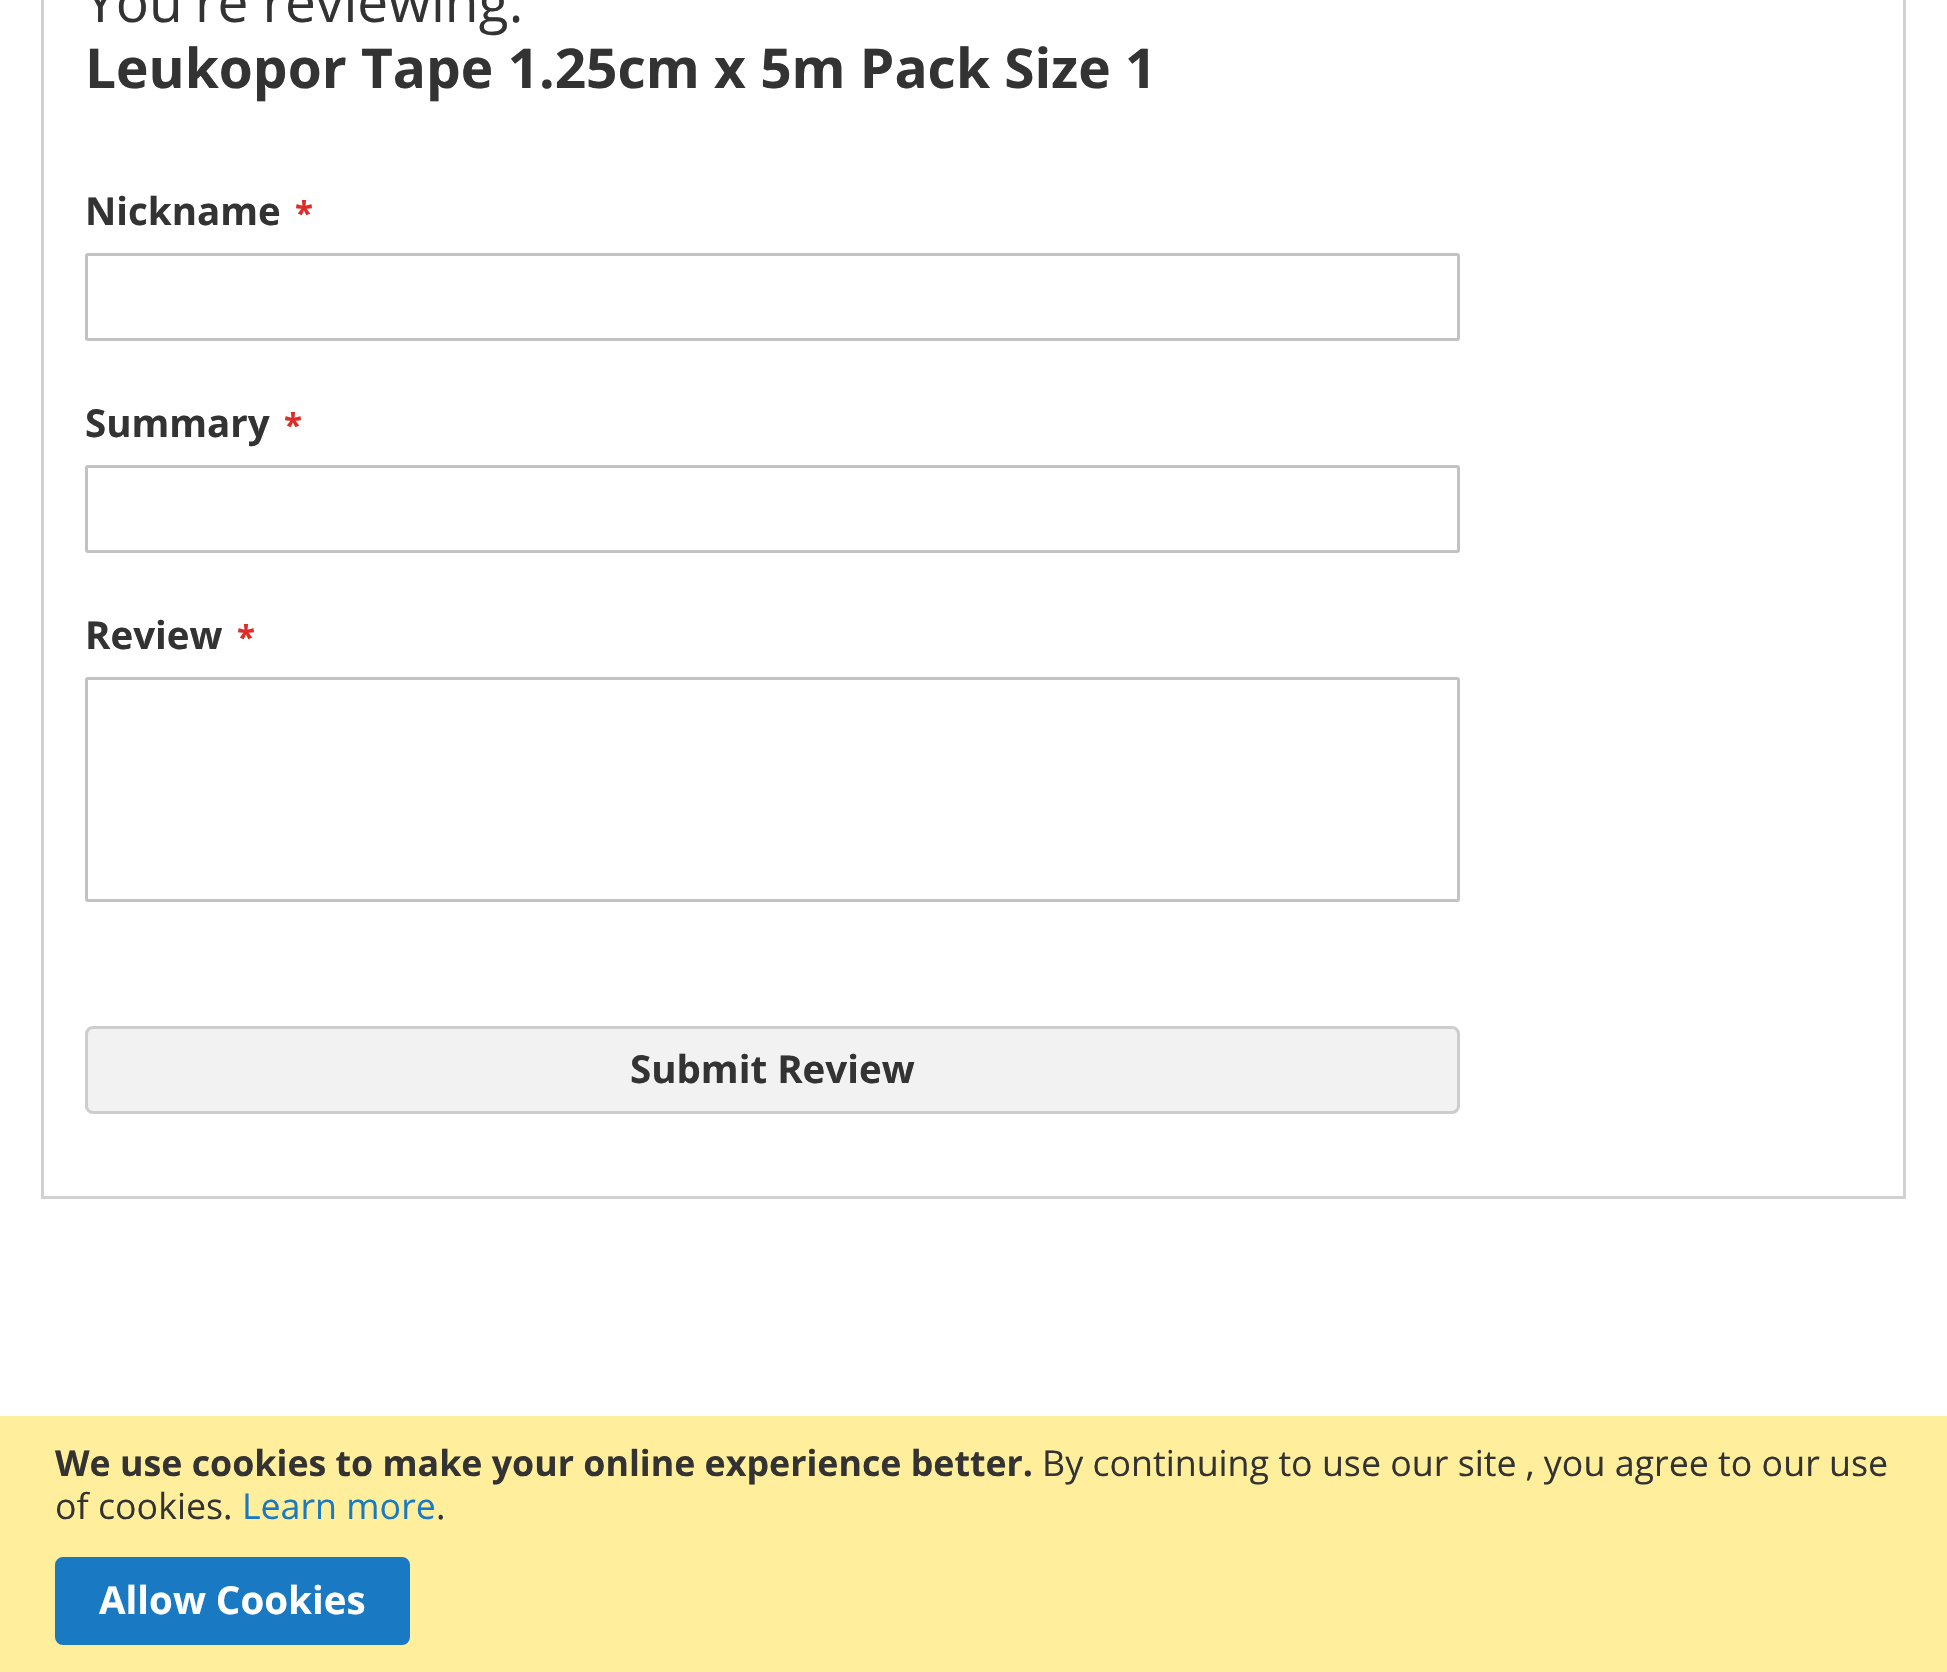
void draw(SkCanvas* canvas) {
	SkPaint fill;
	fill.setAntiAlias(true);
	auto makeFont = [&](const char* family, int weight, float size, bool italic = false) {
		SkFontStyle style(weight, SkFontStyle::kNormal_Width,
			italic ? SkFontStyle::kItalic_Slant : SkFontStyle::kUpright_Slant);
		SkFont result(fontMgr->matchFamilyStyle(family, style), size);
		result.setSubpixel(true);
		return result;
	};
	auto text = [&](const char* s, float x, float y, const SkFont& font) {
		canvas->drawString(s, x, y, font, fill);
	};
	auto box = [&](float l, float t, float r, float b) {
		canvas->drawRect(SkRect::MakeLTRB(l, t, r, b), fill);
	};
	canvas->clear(0xFFFFFFFF);
	fill.setStyle(SkPaint::kStroke_Style);
	fill.setStrokeWidth(3);
	fill.setColor(0xFFD1D1D1);
	canvas->drawRect(SkRect::MakeLTRB(42.5f, -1.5f, 1904.5f, 1197.5f), fill);
	fill.setColor(0xFFC2C2C2);
	canvas->drawRoundRect(SkRect::MakeLTRB(86.5f, 254.5f, 1458.5f, 339.5f), 1.5f, 1.5f, fill);
	canvas->drawRoundRect(SkRect::MakeLTRB(86.5f, 466.5f, 1458.5f, 551.5f), 1.5f, 1.5f, fill);
	canvas->drawRoundRect(SkRect::MakeLTRB(86.5f, 678.5f, 1458.5f, 900.5f), 1.5f, 1.5f, fill);
	fill.setStyle(SkPaint::kFill_Style);
	fill.setColor(0xFFF2F2F2);
	canvas->drawRoundRect(SkRect::MakeLTRB(86.5f, 1027.5f, 1458.5f, 1112.5f), 6.5f, 6.5f, fill);
	fill.setStyle(SkPaint::kStroke_Style);
	fill.setColor(0xFFCDCDCD);
	canvas->drawRoundRect(SkRect::MakeLTRB(86.5f, 1027.5f, 1458.5f, 1112.5f), 6.5f, 6.5f, fill);
	fill.setStyle(SkPaint::kFill_Style);
	fill.setColor(0xFFFFEE9C);
	box(0, 1416, 1947, 1672);
	fill.setColor(0xFF1979C3);
	canvas->drawRoundRect(SkRect::MakeLTRB(56.5f, 1558.5f, 408.5f, 1643.5f), 6.5f, 6.5f, fill);
	fill.setStyle(SkPaint::kStroke_Style);
	canvas->drawRoundRect(SkRect::MakeLTRB(56.5f, 1558.5f, 408.5f, 1643.5f), 6.5f, 6.5f, fill);
	auto font1 = makeFont("Open Sans", 400, 55);
	fill.setStyle(SkPaint::kFill_Style);
	fill.setColor(0xFF333333);
	text("You're reviewing:", 85, 22, font1);
	auto font2 = makeFont("Open Sans", 700, 55);
	text("Leukopor Tape 1.25cm x 5m Pack Size 1", 85, 88, font2);
	auto font3 = makeFont("Open Sans", 700, 38.5f);
	text("Nickname", 85, 225, font3);
	auto font4 = makeFont("Open Sans", 700, 33);
	fill.setColor(0xFFE02B27);
	text("*", 295, 225, font4);
	fill.setColor(0xFF333333);
	text("Summary", 85, 437, font3);
	fill.setColor(0xFFE02B27);
	text("*", 284, 437, font4);
	fill.setColor(0xFF333333);
	text("Review", 85, 649, font3);
	fill.setColor(0xFFE02B27);
	text("*", 237, 649, font4);
	fill.setColor(0xFF333333);
	text("Submit Review", 630, 1083, font3);
	auto font5 = makeFont("Open Sans", 700, 35.75f);
	text("We use cookies to make your online experience better.", 55, 1476, font5);
	auto font6 = makeFont("Open Sans", 400, 35.75f);
	text("By continuing to use our site , you agree to our use", 1042, 1476, font6);
	text("of cookies.", 55, 1519, font6);
	fill.setColor(0xFF1979C3);
	text("Learn more", 242, 1519, font6);
	fill.setColor(0xFF333333);
	text(".", 436, 1519, font6);
	fill.setColor(0xFFFFFFFF);
	text("Allow Cookies", 99, 1614, font3);
}
